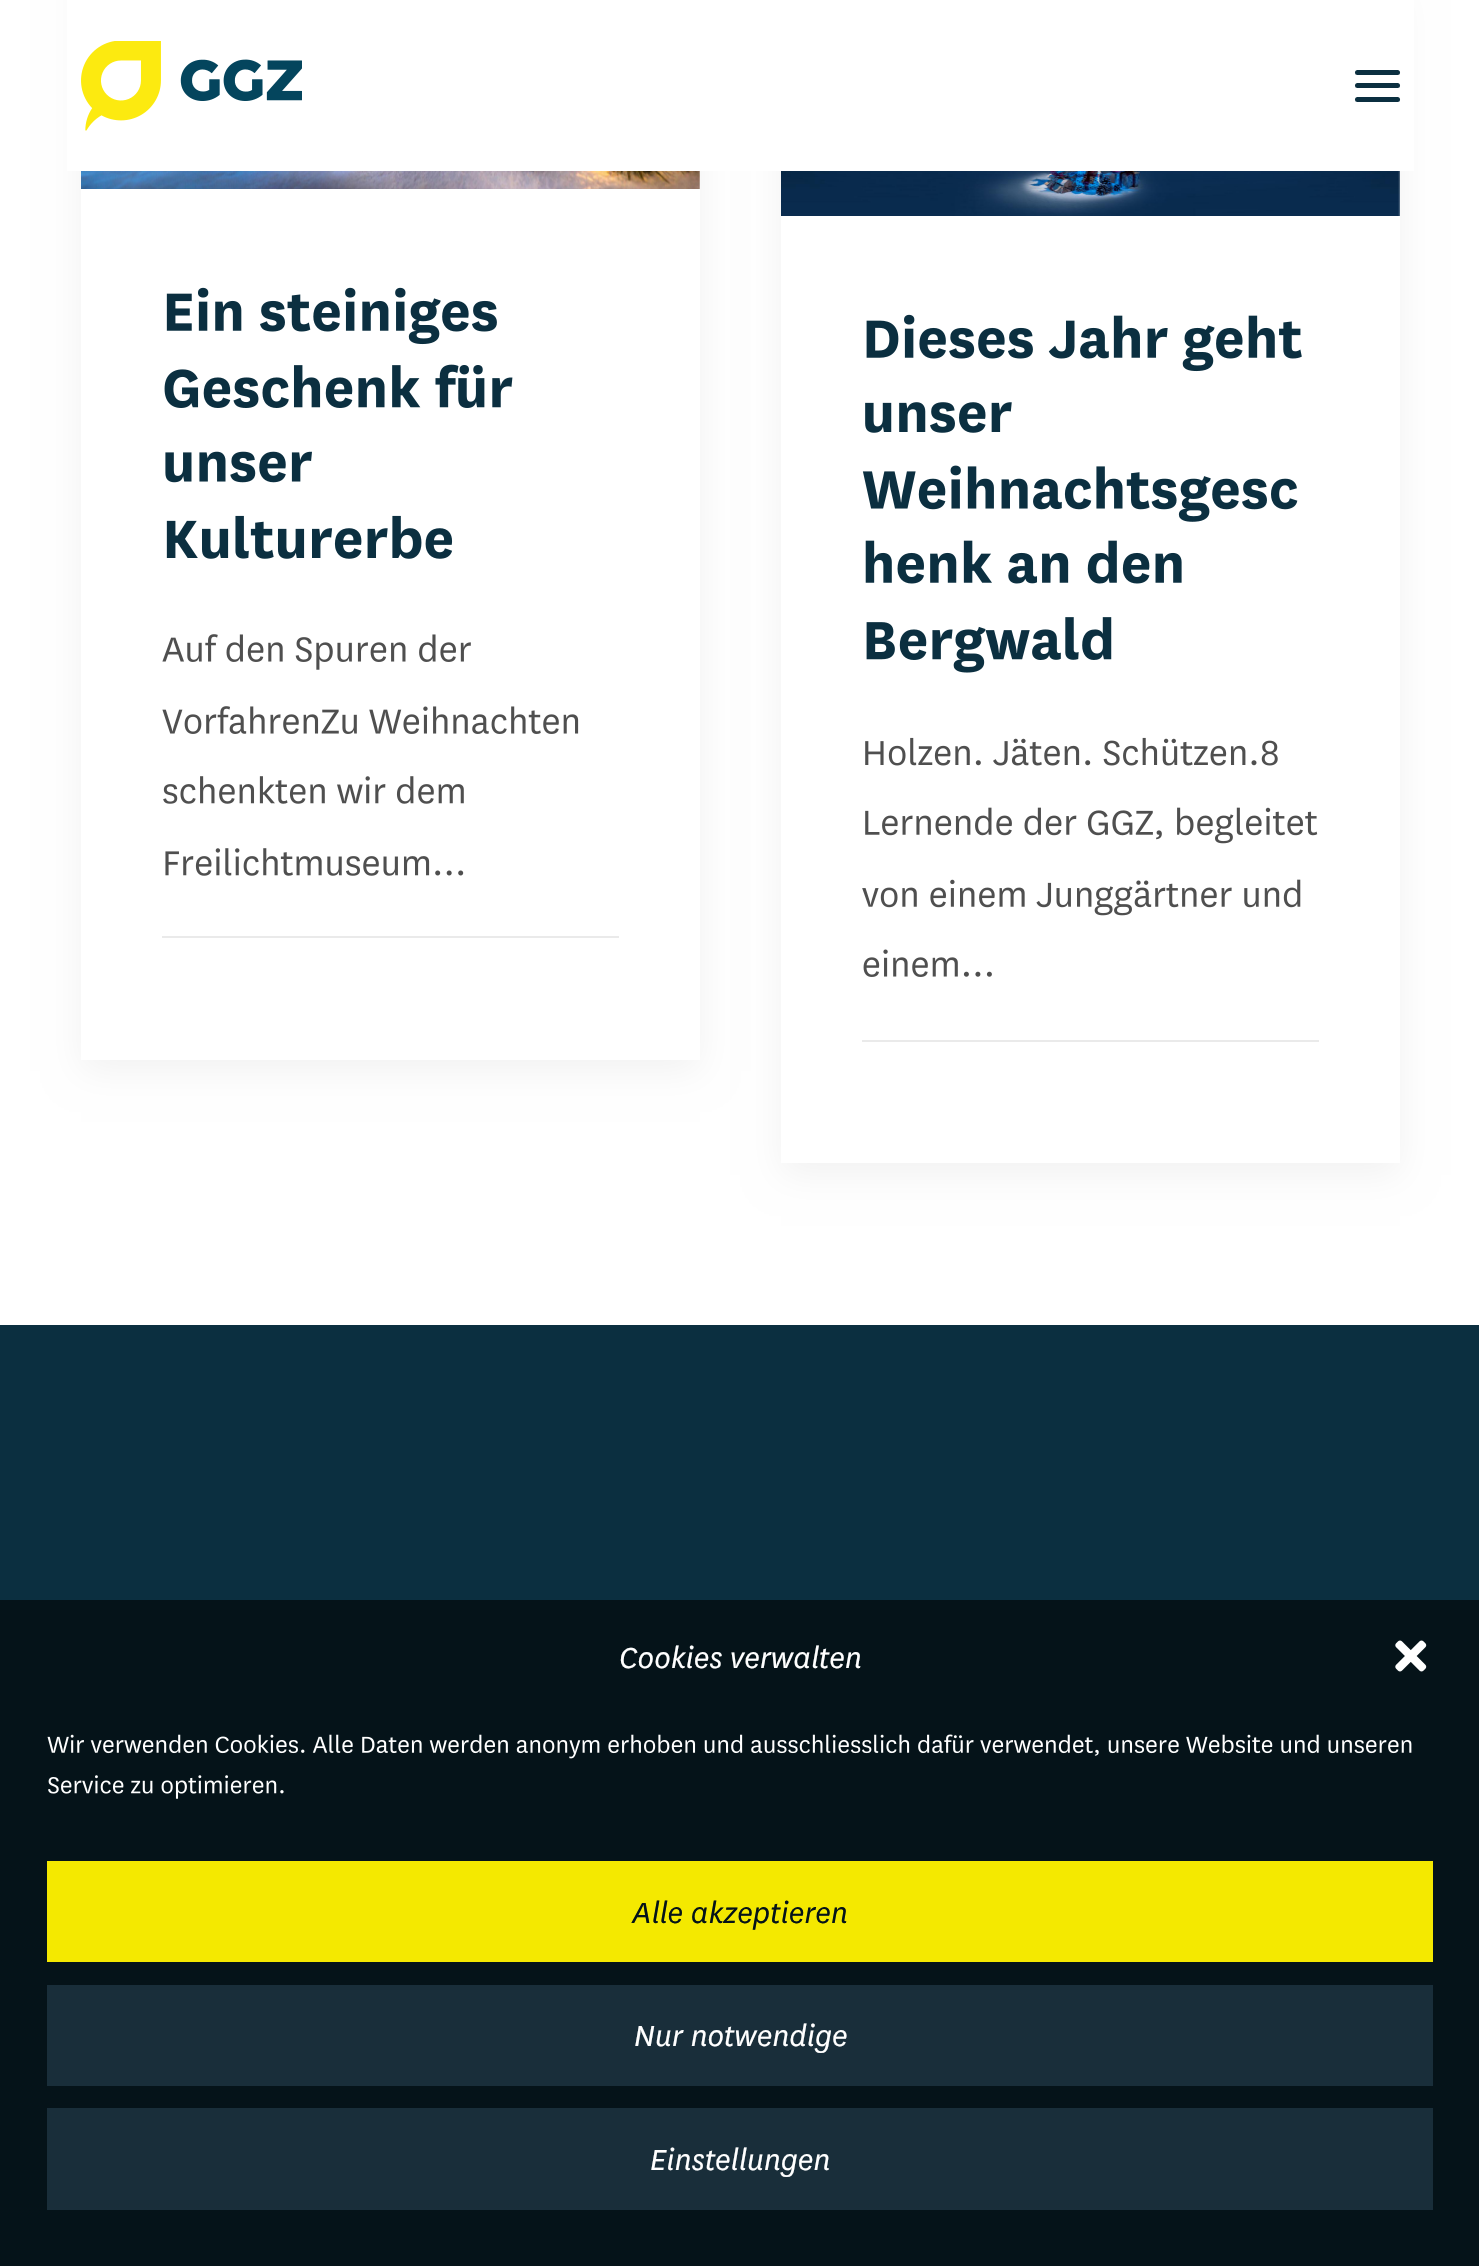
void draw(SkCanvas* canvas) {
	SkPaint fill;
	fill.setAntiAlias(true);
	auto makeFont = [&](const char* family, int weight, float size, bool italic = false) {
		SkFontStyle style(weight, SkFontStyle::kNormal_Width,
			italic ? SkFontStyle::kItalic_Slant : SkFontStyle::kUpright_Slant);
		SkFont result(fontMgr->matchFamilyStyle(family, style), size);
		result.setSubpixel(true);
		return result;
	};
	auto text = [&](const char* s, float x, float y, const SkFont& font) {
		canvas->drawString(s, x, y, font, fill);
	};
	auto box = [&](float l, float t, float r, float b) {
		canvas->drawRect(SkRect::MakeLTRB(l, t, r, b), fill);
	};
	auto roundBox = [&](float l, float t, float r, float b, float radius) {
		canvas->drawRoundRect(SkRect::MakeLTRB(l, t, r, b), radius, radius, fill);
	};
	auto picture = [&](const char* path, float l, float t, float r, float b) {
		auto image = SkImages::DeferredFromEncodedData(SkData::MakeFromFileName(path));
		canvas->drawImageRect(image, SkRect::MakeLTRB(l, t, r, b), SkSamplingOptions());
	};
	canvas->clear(0xFFFFFFFF);
	fill.setColor(0x0D000000);
	fill.setMaskFilter(SkMaskFilter::MakeBlur(kNormal_SkBlurStyle, 17));
	canvas->drawRect(SkRect::MakeLTRB(81, -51, 700, 1071), fill);
	fill.setMaskFilter(nullptr);
	fill.setColor(0xFFFFFFFF);
	box(81, 171, 700, 1060);
	picture("image0.png", 81, 171, 700, 189);
	picture("image1.png", 166, 287, 497, 345);
	picture("image2.png", 164, 364, 513, 408);
	picture("image3.png", 165, 451, 312, 483);
	picture("image4.png", 166, 515, 453, 559);
	picture("image5.png", 162, 634, 471, 670);
	picture("image6.png", 162, 706, 579, 734);
	picture("image7.png", 163, 776, 464, 804);
	picture("image8.png", 165, 848, 464, 876);
	fill.setColor(0xFFEAEAEA);
	box(162, 936, 619, 938);
	fill.setColor(0x0D000000);
	fill.setMaskFilter(SkMaskFilter::MakeBlur(kNormal_SkBlurStyle, 17));
	canvas->drawRect(SkRect::MakeLTRB(781, -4, 1400, 1175), fill);
	fill.setMaskFilter(nullptr);
	fill.setColor(0xFFFFFFFF);
	box(781, 171, 1400, 1163);
	picture("image9.png", 781, 171, 1400, 216);
	picture("image10.png", 866, 314, 1302, 372);
	picture("image11.png", 865, 402, 1012, 433);
	picture("image12.png", 862, 465, 1298, 522);
	picture("image13.png", 865, 540, 1182, 584);
	picture("image14.png", 866, 617, 1112, 673);
	picture("image15.png", 865, 737, 1278, 766);
	picture("image16.png", 865, 807, 1318, 844);
	picture("image17.png", 862, 879, 1301, 916);
	picture("image18.png", 863, 949, 992, 977);
	fill.setColor(0xFFEAEAEA);
	box(862, 1040, 1319, 1042);
	fill.setColor(0xFF0B2F40);
	box(0, 1325, 1479, 1600);
	fill.setColor(0xFFFFFFFF);
	box(67, 0, 1414, 171);
	picture("image19.png", 81, 41, 302, 131);
	fill.setColor(0xFF0B2F40);
	roundBox(1355, 83, 1400, 88, 2.5f);
	roundBox(1355, 70, 1400, 75, 2.5f);
	roundBox(1355, 97, 1400, 102, 2.5f);
	fill.setColor(0xFF051319);
	box(0, 1600, 1479, 2266);
	picture("image20.png", 1395, 1640, 1427, 1672);
	picture("image21.png", 47, 1734, 1412, 1759);
	picture("image22.png", 48, 1775, 284, 1799);
	fill.setColor(0xFFF4E900);
	box(47, 1861, 1433, 1962);
	fill.setColor(0xFF192E3A);
	box(47, 1985, 1433, 2086);
	box(47, 2108, 1433, 2210);
	auto font1 = makeFont("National", 400, 33.75f, true);
	fill.setColor(0xFFFFFFFF);
	text("Cookies verwalten", 619, 1668, font1);
	fill.setColor(0xFF051319);
	text("Alle akzeptieren", 632, 1923, font1);
	fill.setColor(0xFFFFFFFF);
	text("Nur notwendige", 634, 2046, font1);
	text("Einstellungen", 650, 2170, font1);
}
